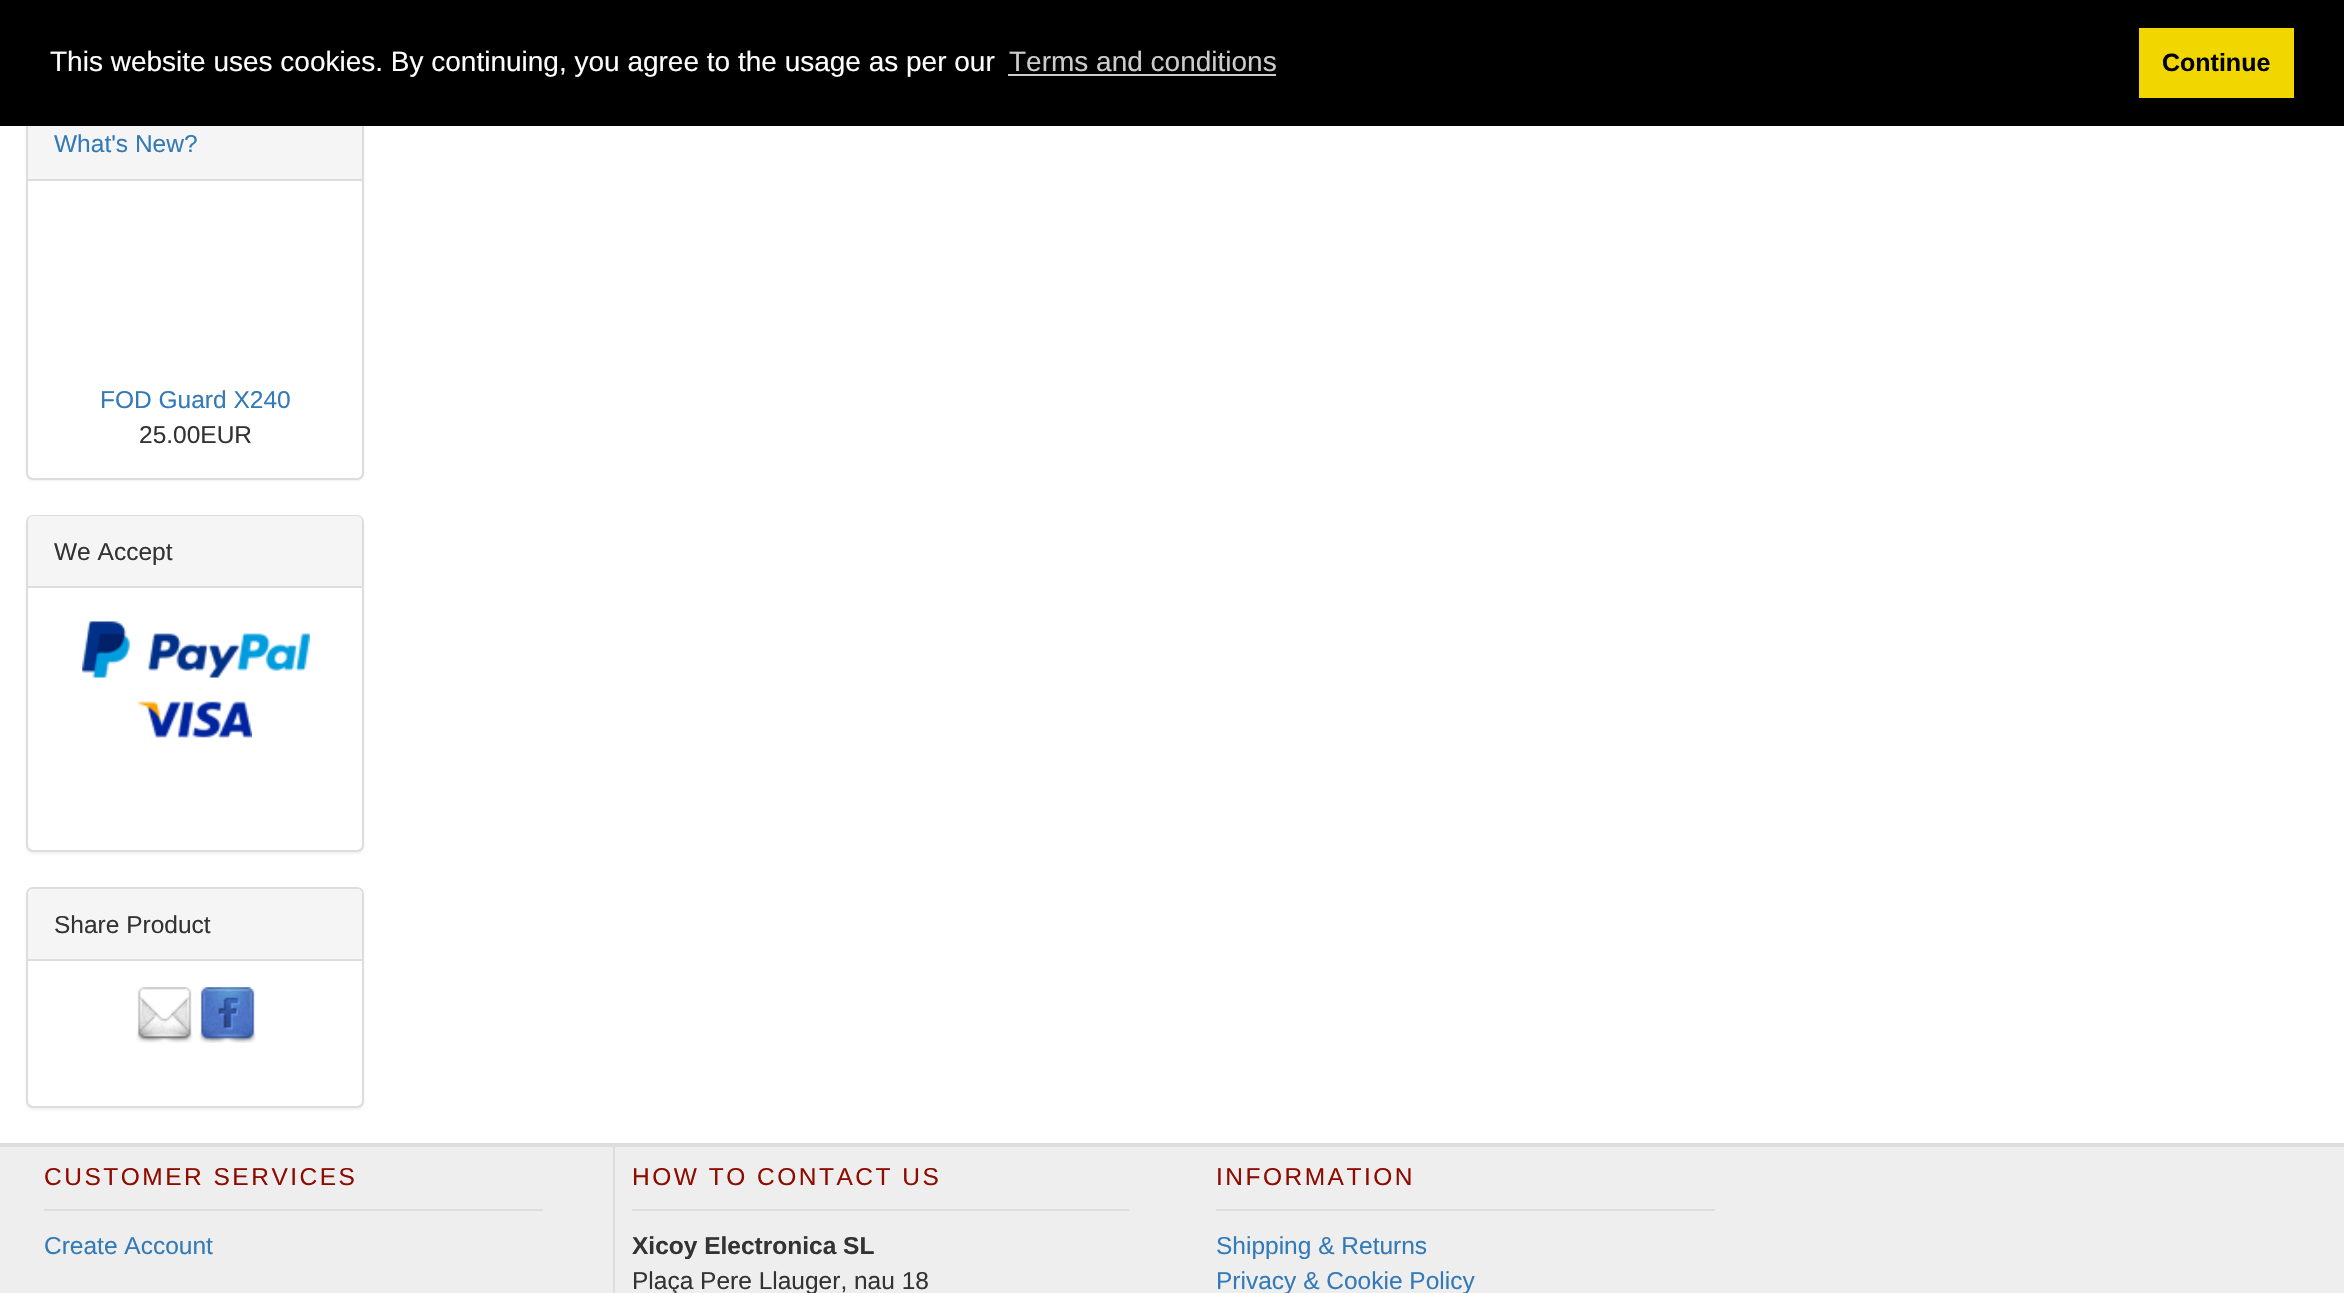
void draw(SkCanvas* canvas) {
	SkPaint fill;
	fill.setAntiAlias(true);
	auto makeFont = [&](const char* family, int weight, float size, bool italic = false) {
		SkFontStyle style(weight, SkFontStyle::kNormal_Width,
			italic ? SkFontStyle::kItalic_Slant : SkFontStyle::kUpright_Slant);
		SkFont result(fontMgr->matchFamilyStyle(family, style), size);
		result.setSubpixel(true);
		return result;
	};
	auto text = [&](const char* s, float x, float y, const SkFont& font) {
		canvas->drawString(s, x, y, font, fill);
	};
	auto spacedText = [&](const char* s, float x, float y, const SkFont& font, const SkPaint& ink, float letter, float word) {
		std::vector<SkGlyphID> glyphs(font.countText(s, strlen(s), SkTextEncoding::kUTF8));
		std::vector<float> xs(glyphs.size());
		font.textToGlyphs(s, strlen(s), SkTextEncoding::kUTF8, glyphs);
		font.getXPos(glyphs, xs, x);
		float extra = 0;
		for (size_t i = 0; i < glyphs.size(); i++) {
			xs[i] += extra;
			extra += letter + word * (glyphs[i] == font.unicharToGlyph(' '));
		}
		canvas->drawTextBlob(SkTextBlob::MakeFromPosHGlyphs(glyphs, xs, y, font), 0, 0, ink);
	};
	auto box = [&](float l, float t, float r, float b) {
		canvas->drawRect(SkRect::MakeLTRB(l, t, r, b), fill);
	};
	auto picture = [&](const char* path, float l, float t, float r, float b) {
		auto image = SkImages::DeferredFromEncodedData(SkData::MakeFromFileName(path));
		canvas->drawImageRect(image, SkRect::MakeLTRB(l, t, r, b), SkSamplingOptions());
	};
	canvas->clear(0xFFFFFFFF);
	fill.setColor(0x0D000000);
	fill.setMaskFilter(SkMaskFilter::MakeBlur(kNormal_SkBlurStyle, 1));
	canvas->drawRoundRect(SkRect::MakeLTRB(26, 109, 364, 481), 7, 7, fill);
	fill.setMaskFilter(nullptr);
	fill.setColor(0xFFFFFFFF);
	canvas->drawRoundRect(SkRect::MakeLTRB(27, 108, 363, 479), 6, 6, fill);
	fill.setStyle(SkPaint::kStroke_Style);
	fill.setStrokeWidth(2);
	fill.setColor(0xFFDDDDDD);
	canvas->drawRoundRect(SkRect::MakeLTRB(27, 108, 363, 479), 6, 6, fill);
	fill.setStyle(SkPaint::kFill_Style);
	fill.setColor(0xFF000000);
	box(0, 0, 2344, 126);
	fill.setColor(0xFFCCCCCC);
	box(1008, 74, 1276, 76);
	fill.setColor(0xFFF1D600);
	box(2139, 28, 2294, 98);
	fill.setColor(0xFFF5F5F5);
	box(28, 126, 362, 179);
	fill.setColor(0xFFDDDDDD);
	box(28, 179, 362, 181);
	fill.setColor(0x0D000000);
	fill.setMaskFilter(SkMaskFilter::MakeBlur(kNormal_SkBlurStyle, 1));
	canvas->drawRoundRect(SkRect::MakeLTRB(26, 516, 364, 854), 7, 7, fill);
	fill.setMaskFilter(nullptr);
	fill.setColor(0xFFFFFFFF);
	canvas->drawRoundRect(SkRect::MakeLTRB(27, 516, 363, 851), 6, 6, fill);
	fill.setStyle(SkPaint::kStroke_Style);
	fill.setColor(0xFFDDDDDD);
	canvas->drawRoundRect(SkRect::MakeLTRB(27, 516, 363, 851), 6, 6, fill);
	fill.setStyle(SkPaint::kFill_Style);
	fill.setColor(0xFFF5F5F5);
	canvas->drawPath(SkPathBuilder().moveTo(33, 516).lineTo(357, 516).cubicTo(360, 516, 362, 518, 362, 521).lineTo(362, 588).lineTo(28, 588).lineTo(28, 521).cubicTo(28, 518, 30, 516, 33, 516).close().detach(), fill);
	fill.setColor(0xFFDDDDDD);
	box(28, 586, 362, 588);
	picture("image0.png", 82, 621, 310, 678);
	picture("image1.png", 138, 701, 252, 738);
	fill.setColor(0x0D000000);
	fill.setMaskFilter(SkMaskFilter::MakeBlur(kNormal_SkBlurStyle, 1));
	canvas->drawRoundRect(SkRect::MakeLTRB(26, 889, 364, 1110), 7, 7, fill);
	fill.setMaskFilter(nullptr);
	fill.setColor(0xFFFFFFFF);
	canvas->drawRoundRect(SkRect::MakeLTRB(27, 888, 363, 1107), 6, 6, fill);
	fill.setStyle(SkPaint::kStroke_Style);
	fill.setColor(0xFFDDDDDD);
	canvas->drawRoundRect(SkRect::MakeLTRB(27, 888, 363, 1107), 6, 6, fill);
	fill.setStyle(SkPaint::kFill_Style);
	fill.setColor(0xFFF5F5F5);
	canvas->drawPath(SkPathBuilder().moveTo(33, 889).lineTo(357, 889).cubicTo(360, 889, 362, 891, 362, 894).lineTo(362, 961).lineTo(28, 961).lineTo(28, 894).cubicTo(28, 891, 30, 889, 33, 889).close().detach(), fill);
	fill.setColor(0xFFDDDDDD);
	box(28, 959, 362, 961);
	picture("image2.png", 136, 987, 193, 1043);
	picture("image3.png", 199, 987, 256, 1043);
	fill.setColor(0xFFEEEEEE);
	box(0, 1147, 2344, 1293);
	fill.setColor(0xFFDDDDDD);
	box(0, 1143, 2344, 1147);
	box(44, 1209, 543, 1211);
	box(613, 1146, 615, 1293);
	box(632, 1209, 1129, 1211);
	box(1216, 1209, 1715, 1211);
	auto font1 = makeFont("Liberation Sans", 400, 28);
	fill.setColor(0xFFFFFFFF);
	text("This website uses cookies. By continuing, you agree to the usage as per our", 50, 71, font1);
	fill.setColor(0xFFCCCCCC);
	text("Terms and conditions", 1009, 71, font1);
	auto font2 = makeFont("Liberation Sans", 700, 25);
	fill.setColor(0xFF000000);
	text("Continue", 2162, 71, font2);
	auto font3 = makeFont("Liberation Sans", 400, 24.5f);
	fill.setColor(0xFF337AB7);
	text("What's New?", 54, 152, font3);
	text("FOD Guard X240", 100, 408, font3);
	fill.setColor(0xFF333333);
	text("25.00EUR", 139, 443, font3);
	text("We Accept", 54, 560, font3);
	text("Share Product", 54, 933, font3);
	fill.setColor(0xFF8E0B00);
	spacedText("CUSTOMER SERVICES", 44, 1185, font3, fill, 2.5f, 0);
	fill.setColor(0xFF337AB7);
	text("Create Account", 44, 1254, font3);
	fill.setColor(0xFF8E0B00);
	spacedText("HOW TO CONTACT US", 632, 1185, font3, fill, 2.5f, 0);
	auto font4 = makeFont("Liberation Sans", 700, 24.5f);
	fill.setColor(0xFF333333);
	text("Xicoy Electronica SL", 632, 1254, font4);
	text("Plaça Pere Llauger, nau 18", 632, 1289, font3);
	fill.setColor(0xFF8E0B00);
	spacedText("INFORMATION", 1216, 1185, font3, fill, 2.5f, 0);
	fill.setColor(0xFF337AB7);
	text("Shipping & Returns", 1216, 1254, font3);
	text("Privacy & Cookie Policy", 1216, 1289, font3);
}
